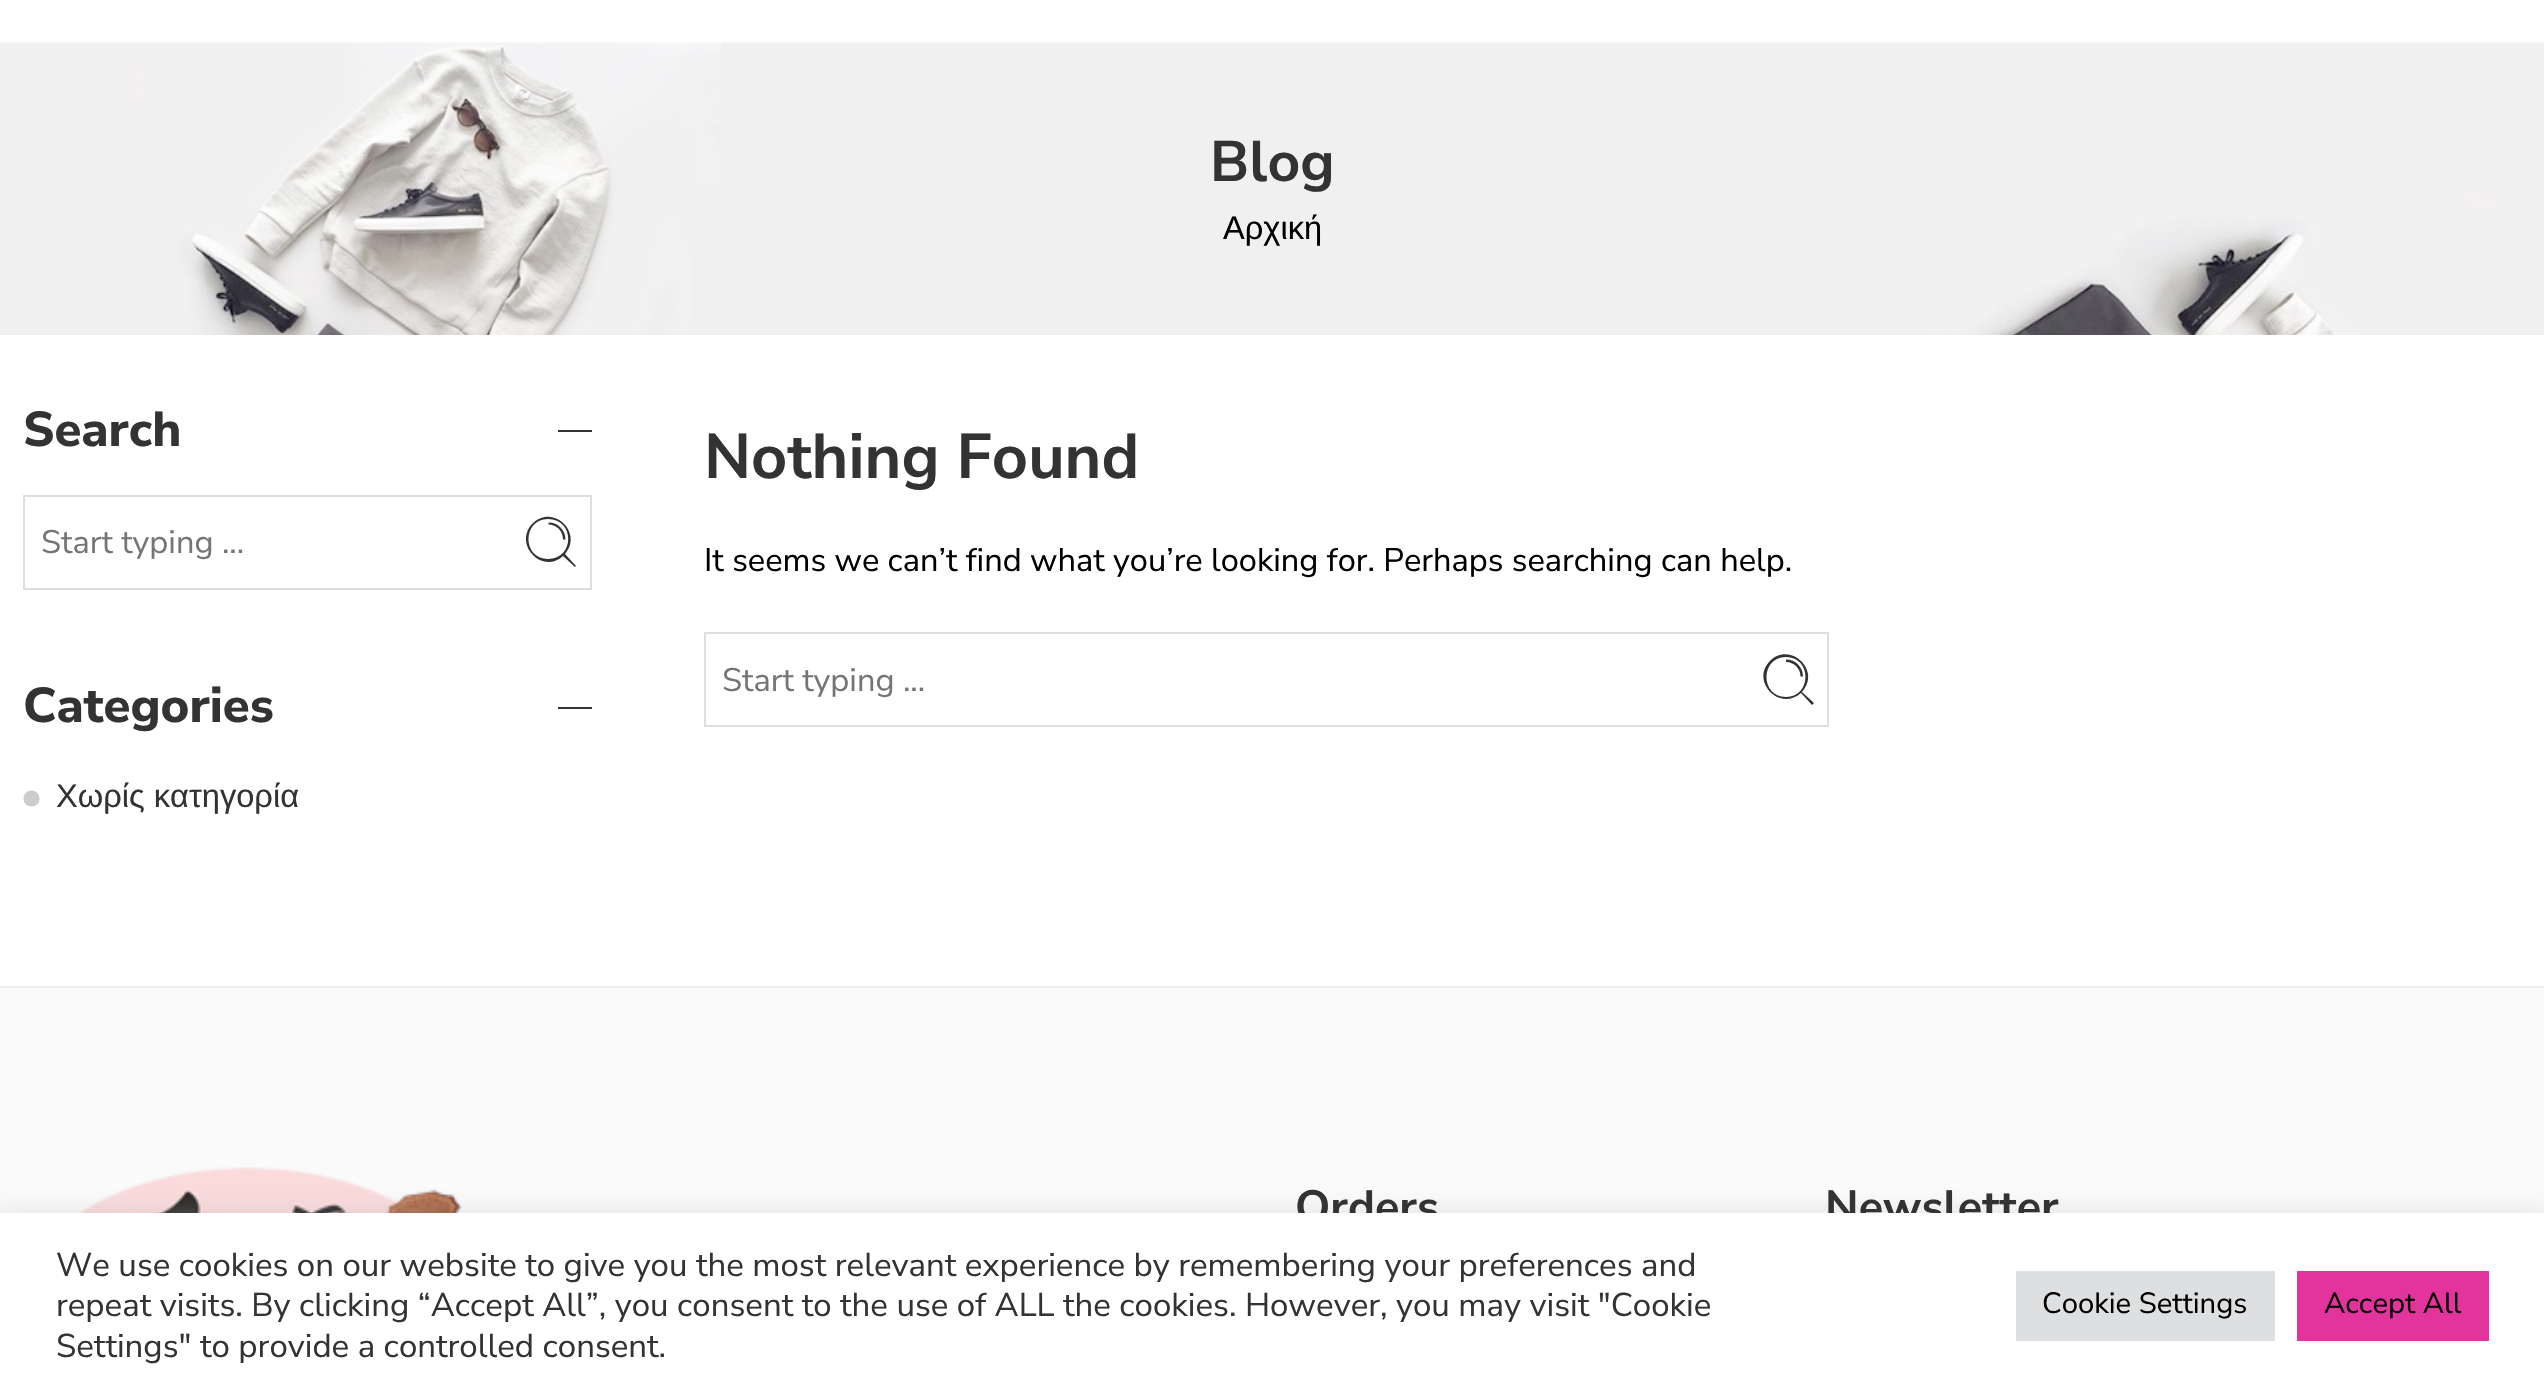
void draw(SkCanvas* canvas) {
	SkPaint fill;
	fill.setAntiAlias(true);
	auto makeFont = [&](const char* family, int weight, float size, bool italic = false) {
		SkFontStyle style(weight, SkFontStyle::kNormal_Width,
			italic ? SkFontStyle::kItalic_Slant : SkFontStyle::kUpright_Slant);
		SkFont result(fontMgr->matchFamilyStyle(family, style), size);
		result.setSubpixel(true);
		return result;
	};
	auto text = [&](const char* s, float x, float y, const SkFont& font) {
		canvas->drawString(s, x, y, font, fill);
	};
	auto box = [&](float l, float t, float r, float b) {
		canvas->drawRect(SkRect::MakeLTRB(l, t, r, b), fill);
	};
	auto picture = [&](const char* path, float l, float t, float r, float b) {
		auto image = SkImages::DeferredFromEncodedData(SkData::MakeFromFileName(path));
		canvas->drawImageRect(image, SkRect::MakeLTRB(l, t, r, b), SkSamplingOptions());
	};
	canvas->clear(0xFFFFFFFF);
	picture("image0.png", 0, 42, 2544, 335);
	fill.setColor(0xFF333333);
	box(558, 430, 592, 432);
	fill.setStyle(SkPaint::kStroke_Style);
	fill.setStrokeWidth(2);
	fill.setColor(0xFFDEDEDE);
	canvas->drawRect(SkRect::MakeLTRB(24, 496, 591, 589), fill);
	fill.setStyle(SkPaint::kFill_Style);
	fill.setColor(0xFF333333);
	canvas->drawPath(SkPathBuilder().moveTo(576, 566).lineTo(565, 554).cubicTo(584, 532, 552, 503, 532, 524).cubicTo(513, 545, 543, 575, 563, 556).lineTo(575, 567).close().moveTo(548, 559).cubicTo(522, 559, 522, 519, 548, 519).cubicTo(575, 519, 575, 559, 548, 559).close().detach(), fill);
	canvas->drawPath(SkPathBuilder().moveTo(548.5f, 522.5f).lineTo(548.5f, 524.5f).cubicTo(556.5f, 524.5f, 563, 531, 563, 539.5f).lineTo(565.5f, 539.5f).cubicTo(565.5f, 530, 558, 522.5f, 548.5f, 522.5f).close().detach(), fill);
	box(558, 707, 592, 709);
	picture("image1.png", 23, 790, 40, 807);
	fill.setStyle(SkPaint::kStroke_Style);
	fill.setColor(0xFFDEDEDE);
	canvas->drawRect(SkRect::MakeLTRB(705, 633, 1828, 726), fill);
	fill.setStyle(SkPaint::kFill_Style);
	fill.setColor(0xFF333333);
	canvas->drawPath(SkPathBuilder().moveTo(1814, 703).lineTo(1802, 692).cubicTo(1822, 670, 1789, 640, 1769, 662).cubicTo(1751, 682, 1780, 712, 1801, 693).lineTo(1812, 705).close().moveTo(1786, 697).cubicTo(1760, 697, 1760, 657, 1786, 657).cubicTo(1812, 657, 1812, 697, 1786, 697).close().detach(), fill);
	canvas->drawPath(SkPathBuilder().moveTo(1786, 659.5f).lineTo(1786, 662).cubicTo(1794, 662, 1800.5f, 668.5f, 1800.5f, 676.5f).lineTo(1803, 676.5f).cubicTo(1803, 667, 1795.5f, 659.5f, 1786, 659.5f).close().detach(), fill);
	fill.setColor(0xFFFAFAFA);
	box(0, 988, 2544, 1213);
	fill.setColor(0xFFEFEFEF);
	box(0, 986, 2544, 988);
	picture("image2.png", 77, 1167, 464, 1213);
	fill.setColor(0x4DACABAB);
	fill.setMaskFilter(SkMaskFilter::MakeBlur(kNormal_SkBlurStyle, 11));
	canvas->drawRect(SkRect::MakeLTRB(0, 1211, 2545, 1395), fill);
	fill.setMaskFilter(nullptr);
	auto font1 = makeFont("Nunito Sans", 700, 57);
	fill.setColor(0xFF333333);
	text("Blog", 1210, 181, font1);
	auto font2 = makeFont("Liberation Sans", 400, 32.6f);
	fill.setColor(0xFF000000);
	text("Αρχική", 1223, 239, font2);
	auto font3 = makeFont("Nunito Sans", 800, 49);
	fill.setColor(0xFF333333);
	text("Search", 23, 446, font3);
	auto font4 = makeFont("Nunito Sans", 400, 32.6f);
	fill.setColor(0xFF757575);
	text("Start typing ...", 41, 553, font4);
	fill.setColor(0xFF333333);
	text("Categories", 23, 722, font3);
	text("Χωρίς κατηγορία", 56, 807, font2);
	auto font5 = makeFont("Nunito Sans", 700, 63);
	text("Nothing Found", 704, 478, font5);
	fill.setColor(0xFF000000);
	text("It seems we can’t find what you’re looking for. Perhaps searching can help.", 704, 571, font4);
	fill.setColor(0xFF757575);
	text("Start typing ...", 722, 691, font4);
	auto font6 = makeFont("Nunito Sans", 700, 45);
	fill.setColor(0xFF333333);
	text("Orders", 1295, 1222, font6);
	text("Newsletter", 1825, 1222, font6);
	fill.setColor(0xFFFFFFFF);
	box(0, 1213, 2544, 1396);
	auto font7 = makeFont("Nunito Sans", 400, 33);
	fill.setColor(0xFF333333);
	text("We use cookies on our website to give you the most relevant experience by remembering your preferences and", 56, 1276, font7);
	text("repeat visits. By clicking “Accept All”, you consent to the use of ALL the cookies. However, you may visit \"Cookie", 56, 1316, font7);
	text("Settings\" to provide a controlled consent.", 56, 1357, font7);
	fill.setColor(0xFFDEDFE0);
	box(2016, 1271, 2275, 1341);
	auto font8 = makeFont("Nunito Sans", 400, 29.25f);
	fill.setColor(0xFF000000);
	text("Cookie Settings", 2042, 1313, font8);
	fill.setColor(0xFFE3349D);
	box(2297, 1271, 2489, 1341);
	fill.setColor(0xFF000000);
	text("Accept All", 2324, 1313, font8);
}
